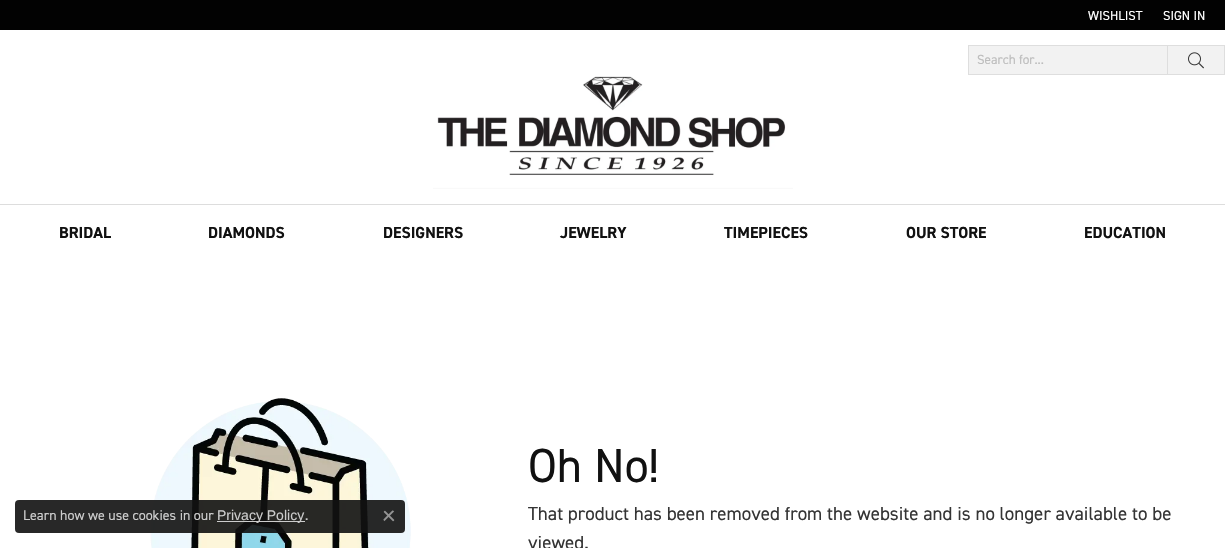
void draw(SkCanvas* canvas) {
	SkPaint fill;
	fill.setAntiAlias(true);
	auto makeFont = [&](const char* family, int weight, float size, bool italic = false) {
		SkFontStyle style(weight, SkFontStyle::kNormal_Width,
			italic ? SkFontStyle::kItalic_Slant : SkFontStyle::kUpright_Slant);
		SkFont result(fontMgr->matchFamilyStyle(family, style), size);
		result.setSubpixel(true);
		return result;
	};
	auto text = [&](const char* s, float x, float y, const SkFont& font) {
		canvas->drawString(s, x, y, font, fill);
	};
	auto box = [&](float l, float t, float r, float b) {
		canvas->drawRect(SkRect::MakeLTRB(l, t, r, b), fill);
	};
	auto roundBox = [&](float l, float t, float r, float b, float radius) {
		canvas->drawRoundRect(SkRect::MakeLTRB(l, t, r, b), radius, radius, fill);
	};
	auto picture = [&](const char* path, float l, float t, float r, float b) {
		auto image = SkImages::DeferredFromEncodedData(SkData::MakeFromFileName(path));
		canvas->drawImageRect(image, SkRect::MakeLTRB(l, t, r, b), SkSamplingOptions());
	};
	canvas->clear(0xFF020202);
	fill.setColor(0xFFFFFFFF);
	box(0, 30, 1225, 204);
	fill.setColor(0xFFDDDDDD);
	box(0, 204, 1225, 205);
	fill.setColor(0xFFF2F2F2);
	canvas->drawRect(SkRect::MakeLTRB(968.5f, 45.5f, 1167.5f, 74.5f), fill);
	fill.setStyle(SkPaint::kStroke_Style);
	fill.setStrokeWidth(1);
	fill.setColor(0xFFDEDEDE);
	canvas->drawRect(SkRect::MakeLTRB(968.5f, 45.5f, 1167.5f, 74.5f), fill);
	fill.setStyle(SkPaint::kFill_Style);
	fill.setColor(0xFFF2F2F2);
	canvas->drawRect(SkRect::MakeLTRB(1167.5f, 45.5f, 1224.5f, 74.5f), fill);
	fill.setStyle(SkPaint::kStroke_Style);
	fill.setColor(0xFFDEDEDE);
	canvas->drawRect(SkRect::MakeLTRB(1167.5f, 45.5f, 1224.5f, 74.5f), fill);
	picture("image0.png", 1188, 52, 1204, 69);
	picture("image1.png", 433, 76, 793, 189);
	fill.setStyle(SkPaint::kFill_Style);
	fill.setColor(0xFFFFFFFF);
	box(0, 205, 1225, 548);
	picture("image3.png", 150, 398, 411, 548);
	fill.setColor(0xE6111111);
	roundBox(15, 500, 405, 533, 4);
	fill.setColor(0xFFCCCCCC);
	box(217, 521, 305, 522);
	picture("image2.png", 383, 510, 395, 522);
	auto font1 = makeFont("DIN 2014", 400, 13);
	fill.setColor(0xFFFFFFFF);
	text("WISHLIST", 1088, 20, font1);
	text("SIGN IN", 1163, 20, font1);
	auto font2 = makeFont("DIN 2014", 400, 13.25f);
	fill.setColor(0xFFBDBDBD);
	text("Search for...", 977, 64, font2);
	auto font3 = makeFont("DIN 2014", 700, 16);
	fill.setColor(0xFF111111);
	text("BRIDAL", 59, 238, font3);
	text("DIAMONDS", 208, 238, font3);
	text("DESIGNERS", 383, 238, font3);
	text("JEWELRY", 560, 238, font3);
	text("TIMEPIECES", 724, 238, font3);
	text("OUR STORE", 906, 238, font3);
	text("EDUCATION", 1084, 238, font3);
	auto font4 = makeFont("DIN 2014", 400, 14);
	fill.setColor(0xFFCCCCCC);
	text("Learn how we use cookies in our", 23, 520, font4);
	auto font5 = makeFont("Liberation Sans", 400, 14);
	text("Privacy Policy", 217, 520, font5);
	text(".", 305, 520, font4);
	auto font6 = makeFont("DIN 2014", 400, 48);
	fill.setColor(0xFF111111);
	text("Oh No!", 528, 482, font6);
	auto font7 = makeFont("DIN 2014", 400, 19);
	fill.setColor(0xFF353535);
	text("That product has been removed from the website and is no longer available to be", 528, 520, font7);
	text("viewed.", 528, 549, font7);
}
